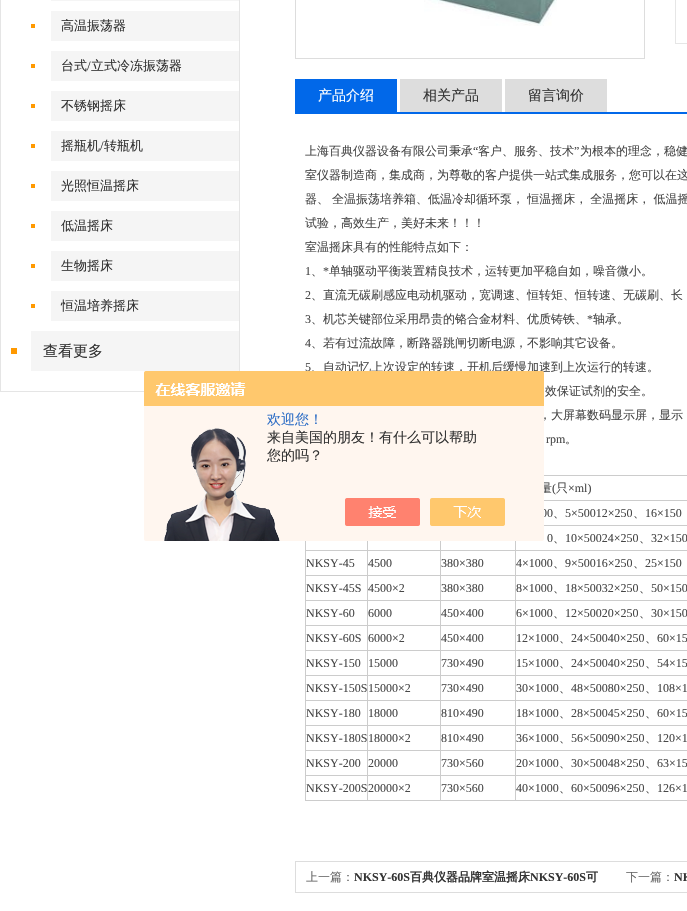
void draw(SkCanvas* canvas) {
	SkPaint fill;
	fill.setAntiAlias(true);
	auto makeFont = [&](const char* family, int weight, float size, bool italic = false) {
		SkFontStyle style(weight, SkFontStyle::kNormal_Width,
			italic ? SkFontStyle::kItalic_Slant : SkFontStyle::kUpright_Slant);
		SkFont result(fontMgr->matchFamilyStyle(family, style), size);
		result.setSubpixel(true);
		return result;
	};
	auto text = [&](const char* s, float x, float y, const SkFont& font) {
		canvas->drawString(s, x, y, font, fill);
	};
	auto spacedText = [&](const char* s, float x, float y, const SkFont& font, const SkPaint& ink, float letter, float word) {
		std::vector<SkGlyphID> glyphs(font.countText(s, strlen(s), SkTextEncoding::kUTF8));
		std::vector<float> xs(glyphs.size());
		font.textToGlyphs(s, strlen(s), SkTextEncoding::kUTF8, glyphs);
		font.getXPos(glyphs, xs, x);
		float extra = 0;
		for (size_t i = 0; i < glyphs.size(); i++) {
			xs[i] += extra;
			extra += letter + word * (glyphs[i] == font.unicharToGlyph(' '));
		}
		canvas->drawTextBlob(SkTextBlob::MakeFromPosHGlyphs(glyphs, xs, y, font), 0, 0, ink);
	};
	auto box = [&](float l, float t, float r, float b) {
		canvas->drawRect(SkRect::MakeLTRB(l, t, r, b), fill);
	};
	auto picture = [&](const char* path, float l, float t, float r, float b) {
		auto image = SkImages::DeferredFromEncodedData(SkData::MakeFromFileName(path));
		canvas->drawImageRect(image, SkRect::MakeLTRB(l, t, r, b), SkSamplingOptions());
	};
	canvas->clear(0xFFFFFFFF);
	fill.setColor(0xFFE5E5E5);
	box(239, 0, 240, 371);
	box(0, 391, 144, 392);
	box(0, 0, 1, 392);
	fill.setColor(0xFFF5F5F5);
	box(51, 0, 239, 1);
	fill.setColor(0xFFFF9900);
	box(31, 24, 35, 28);
	fill.setColor(0xFFF5F5F5);
	box(51, 11, 239, 41);
	fill.setColor(0xFFFF9900);
	box(31, 64, 35, 68);
	fill.setColor(0xFFF5F5F5);
	box(51, 51, 239, 81);
	fill.setColor(0xFFFF9900);
	box(31, 104, 35, 108);
	fill.setColor(0xFFF5F5F5);
	box(51, 91, 239, 121);
	fill.setColor(0xFFFF9900);
	box(31, 144, 35, 148);
	fill.setColor(0xFFF5F5F5);
	box(51, 131, 239, 161);
	fill.setColor(0xFFFF9900);
	box(31, 184, 35, 188);
	fill.setColor(0xFFF5F5F5);
	box(51, 171, 239, 201);
	fill.setColor(0xFFFF9900);
	box(31, 224, 35, 228);
	fill.setColor(0xFFF5F5F5);
	box(51, 211, 239, 241);
	fill.setColor(0xFFFF9900);
	box(31, 264, 35, 268);
	fill.setColor(0xFFF5F5F5);
	box(51, 251, 239, 281);
	fill.setColor(0xFFFF9900);
	box(31, 304, 35, 308);
	fill.setColor(0xFFF5F5F5);
	box(51, 291, 239, 321);
	fill.setColor(0xFFFF9900);
	box(11, 348, 17, 354);
	fill.setColor(0xFFF5F5F5);
	box(31, 331, 239, 371);
	fill.setStyle(SkPaint::kStroke_Style);
	fill.setStrokeWidth(1);
	fill.setColor(0xFFDDDDDD);
	canvas->drawRect(SkRect::MakeLTRB(295.5f, -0.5f, 644.5f, 58.5f), fill);
	picture("image0.png", 424, 0, 557, 26);
	fill.setColor(0xFFE6E6E6);
	canvas->drawRect(SkRect::MakeLTRB(675.5f, -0.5f, 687.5f, 43.5f), fill);
	fill.setStyle(SkPaint::kFill_Style);
	fill.setColor(0xFF0168E9);
	box(295, 112, 687, 114);
	box(295, 79, 397, 112);
	fill.setColor(0xFFDDDDDD);
	box(400, 79, 502, 112);
	box(505, 79, 607, 112);
	fill.setColor(0xFFCCCCCC);
	box(544, 475, 687, 476);
	box(544, 500, 687, 501);
	box(544, 525, 687, 526);
	box(515, 550, 687, 551);
	box(515, 575, 687, 576);
	box(515, 600, 687, 601);
	box(515, 625, 687, 626);
	box(515, 650, 687, 651);
	box(515, 675, 687, 676);
	box(515, 700, 687, 701);
	box(515, 725, 687, 726);
	box(515, 750, 687, 751);
	box(515, 775, 687, 776);
	box(515, 800, 687, 801);
	box(515, 775, 516, 801);
	box(440, 775, 516, 776);
	box(515, 750, 516, 776);
	box(440, 750, 516, 751);
	box(515, 725, 516, 751);
	box(440, 725, 516, 726);
	box(515, 700, 516, 726);
	box(440, 700, 516, 701);
	box(515, 675, 516, 701);
	box(440, 675, 516, 676);
	box(515, 650, 516, 676);
	box(440, 650, 516, 651);
	box(515, 625, 516, 651);
	box(440, 625, 516, 626);
	box(515, 600, 516, 626);
	box(440, 600, 516, 601);
	box(515, 575, 516, 601);
	box(440, 575, 516, 576);
	box(515, 550, 516, 576);
	box(440, 550, 516, 551);
	box(515, 541, 516, 551);
	box(440, 800, 516, 801);
	box(440, 775, 441, 801);
	box(367, 775, 441, 776);
	box(440, 750, 441, 776);
	box(367, 750, 441, 751);
	box(440, 725, 441, 751);
	box(367, 725, 441, 726);
	box(440, 700, 441, 726);
	box(367, 700, 441, 701);
	box(440, 675, 441, 701);
	box(367, 675, 441, 676);
	box(440, 650, 441, 676);
	box(367, 650, 441, 651);
	box(440, 625, 441, 651);
	box(367, 625, 441, 626);
	box(440, 600, 441, 626);
	box(367, 600, 441, 601);
	box(440, 575, 441, 601);
	box(367, 575, 441, 576);
	box(440, 550, 441, 576);
	box(367, 550, 441, 551);
	box(367, 800, 441, 801);
	box(367, 775, 368, 801);
	box(305, 775, 368, 776);
	box(367, 750, 368, 776);
	box(305, 750, 368, 751);
	box(367, 725, 368, 751);
	box(305, 725, 368, 726);
	box(367, 700, 368, 726);
	box(305, 700, 368, 701);
	box(367, 675, 368, 701);
	box(305, 675, 368, 676);
	box(367, 650, 368, 676);
	box(305, 650, 368, 651);
	box(367, 625, 368, 651);
	box(305, 625, 368, 626);
	box(367, 600, 368, 626);
	box(305, 600, 368, 601);
	box(367, 575, 368, 601);
	box(305, 575, 368, 576);
	box(367, 550, 368, 576);
	box(305, 550, 368, 551);
	box(367, 541, 368, 551);
	box(440, 541, 441, 551);
	box(305, 800, 368, 801);
	box(305, 775, 306, 801);
	box(305, 750, 306, 776);
	box(305, 725, 306, 751);
	box(305, 700, 306, 726);
	box(305, 675, 306, 701);
	box(305, 650, 306, 676);
	box(305, 625, 306, 651);
	box(305, 600, 306, 626);
	box(305, 575, 306, 601);
	box(305, 541, 306, 576);
	fill.setStyle(SkPaint::kStroke_Style);
	fill.setColor(0xFFDDDDDD);
	canvas->drawRect(SkRect::MakeLTRB(295.5f, 861.5f, 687.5f, 892.5f), fill);
	auto font1 = makeFont("WenQuanYi Zen Hei", 500, 13);
	fill.setStyle(SkPaint::kFill_Style);
	fill.setColor(0xFF333333);
	text("高温振荡器", 61, 30, font1);
	text("台式 立式冷冻振荡器", 61, 70, font1);
	auto font2 = makeFont("Liberation Serif", 400, 13);
	text("/", 87, 70, font2);
	text("不锈钢摇床", 61, 110, font1);
	text("摇瓶机 转瓶机", 61, 150, font1);
	text("/", 100, 150, font2);
	text("光照恒温摇床", 61, 190, font1);
	text("低温摇床", 61, 230, font1);
	text("生物摇床", 61, 270, font1);
	text("恒温培养摇床", 61, 310, font1);
	auto font3 = makeFont("WenQuanYi Zen Hei", 500, 15);
	text("查看更多", 43, 356, font3);
	auto font4 = makeFont("WenQuanYi Zen Hei", 500, 14);
	fill.setColor(0xFFFFFFFF);
	text("产品介绍", 318, 100, font4);
	fill.setColor(0xFF333333);
	text("相关产品", 423, 100, font4);
	text("留言询价", 528, 100, font4);
	auto font5 = makeFont("WenQuanYi Zen Hei", 500, 12);
	fill.setColor(0xFF474747);
	text("上海百典仪器设备有限公司秉承", 305, 155, font5);
	auto font6 = makeFont("Liberation Serif", 400, 12);
	text("“", 473, 155, font6);
	text("客户、服务、技术", 478, 155, font5);
	text("”", 574, 155, font6);
	text("为根本的理念，稳健", 580, 155, font5);
	text("室仪器制造商，集成商，为尊敬的客户提供一站式集成服务，您可以在这", 305, 179, font5);
	spacedText("器、 全温振荡培养箱、低温冷却循环泵， 恒温摇床， 全温摇床， 低温摇", 305, 203, font5, fill, 0, -0.5f);
	text("试验，高效生产，美好未来！！！", 305, 227, font5);
	text("室温摇床具有的性能特点如下：", 305, 251, font5);
	text("1", 305, 275, font6);
	text("*", 323, 275, font6);
	text("单轴驱动平衡装置精良技术，运转更加平稳自如，噪音微小。", 329, 275, font5);
	text("、", 311, 275, font5);
	text("2", 305, 299, font6);
	text("、直流无碳刷感应电动机驱动，宽调速、恒转矩、恒转速、无碳刷、长", 311, 299, font5);
	text("3", 305, 323, font6);
	text("、机芯关键部位采用昂贵的铬合金材料、优质铸铁、", 311, 323, font5);
	text("*", 587, 323, font6);
	text("轴承。", 593, 323, font5);
	text("4", 305, 347, font6);
	text("、若有过流故障，断路器跳闸切断电源，不影响其它设备。", 311, 347, font5);
	text("5", 305, 371, font6);
	text("、自动记忆上次设定的转速，开机后缓慢加速到上次运行的转速。", 311, 371, font5);
	text("效保证试剂的安全。", 545, 395, font5);
	text("，大屏幕数码显示屏，显示", 539, 419, font5);
	text("rpm", 546, 443, font6);
	text("。", 565, 443, font5);
	text("量", 540, 492, font5);
	text("(", 552, 492, font6);
	text("只", 556, 492, font5);
	text("×ml)", 568, 492, font6);
	text("00", 541, 517, font6);
	text("、", 553, 517, font5);
	text("5×50012×250", 565, 517, font6);
	text("、", 633, 517, font5);
	text("16×150", 645, 517, font6);
	text("0", 547, 542, font6);
	text("、", 553, 542, font5);
	text("10×50024×250", 565, 542, font6);
	text("、", 639, 542, font5);
	text("32×150", 651, 542, font6);
	text("NKSY-45", 306, 567, font6);
	text("4500", 368, 567, font6);
	text("380×380", 441, 567, font6);
	text("4×1000", 516, 567, font6);
	text("、", 553, 567, font5);
	text("9×50016×250", 565, 567, font6);
	text("、", 633, 567, font5);
	text("25×150", 645, 567, font6);
	text("NKSY-45S", 306, 592, font6);
	text("4500×2", 368, 592, font6);
	text("380×380", 441, 592, font6);
	text("8×1000", 516, 592, font6);
	text("、", 553, 592, font5);
	text("18×50032×250", 565, 592, font6);
	text("、", 639, 592, font5);
	text("50×150", 651, 592, font6);
	text("NKSY-60", 306, 617, font6);
	text("6000", 368, 617, font6);
	text("450×400", 441, 617, font6);
	text("6×1000", 516, 617, font6);
	text("、", 553, 617, font5);
	text("12×50020×250", 565, 617, font6);
	text("、", 639, 617, font5);
	text("30×150", 651, 617, font6);
	text("NKSY-60S", 306, 642, font6);
	text("6000×2", 368, 642, font6);
	text("450×400", 441, 642, font6);
	text("12×1000", 516, 642, font6);
	text("、", 559, 642, font5);
	text("24×50040×250", 571, 642, font6);
	text("、", 645, 642, font5);
	text("60×15", 657, 642, font6);
	text("NKSY-150", 306, 667, font6);
	text("15000", 368, 667, font6);
	text("730×490", 441, 667, font6);
	text("15×1000", 516, 667, font6);
	text("、", 559, 667, font5);
	text("24×50040×250", 571, 667, font6);
	text("、", 645, 667, font5);
	text("54×15", 657, 667, font6);
	text("NKSY-150S", 306, 692, font6);
	text("15000×2", 368, 692, font6);
	text("730×490", 441, 692, font6);
	text("30×1000", 516, 692, font6);
	text("、", 559, 692, font5);
	text("48×50080×250", 571, 692, font6);
	text("、", 645, 692, font5);
	text("108×1", 657, 692, font6);
	text("NKSY-180", 306, 717, font6);
	text("18000", 368, 717, font6);
	text("810×490", 441, 717, font6);
	text("18×1000", 516, 717, font6);
	text("、", 559, 717, font5);
	text("28×50045×250", 571, 717, font6);
	text("、", 645, 717, font5);
	text("60×15", 657, 717, font6);
	text("NKSY-180S", 306, 742, font6);
	text("18000×2", 368, 742, font6);
	text("810×490", 441, 742, font6);
	text("36×1000", 516, 742, font6);
	text("、", 559, 742, font5);
	text("56×50090×250", 571, 742, font6);
	text("、", 645, 742, font5);
	text("120×1", 657, 742, font6);
	text("NKSY-200", 306, 767, font6);
	text("20000", 368, 767, font6);
	text("730×560", 441, 767, font6);
	text("20×1000", 516, 767, font6);
	text("、", 559, 767, font5);
	text("30×50048×250", 571, 767, font6);
	text("、", 645, 767, font5);
	text("63×15", 657, 767, font6);
	text("NKSY-200S", 306, 792, font6);
	text("20000×2", 368, 792, font6);
	text("730×560", 441, 792, font6);
	text("40×1000", 516, 792, font6);
	text("、", 559, 792, font5);
	text("60×50096×250", 571, 792, font6);
	text("、", 645, 792, font5);
	text("126×1", 657, 792, font6);
	fill.setColor(0xFF666666);
	text("上一篇：", 306, 881, font5);
	auto font7 = makeFont("Liberation Serif", 700, 12);
	fill.setColor(0xFF333333);
	text("NKSY-60S", 354, 881, font7);
	auto font8 = makeFont("WenQuanYi Zen Hei", 700, 12);
	text("百典仪器品牌室温摇床", 410, 881, font8);
	text("NKSY-60S", 530, 881, font7);
	text("可", 586, 881, font8);
	fill.setColor(0xFF666666);
	text("下一篇：", 626, 881, font5);
	fill.setColor(0xFF333333);
	text("NK", 674, 881, font7);
	picture("image1.png", 144, 371, 544, 541);
	fill.setColor(0xFF2E6EC6);
	text("欢迎您！", 267, 424, font4);
	fill.setColor(0xFF333333);
	text("来自美国的朋友！有什么可以帮助", 267, 442, font4);
	text("您的吗？", 267, 460, font4);
}
